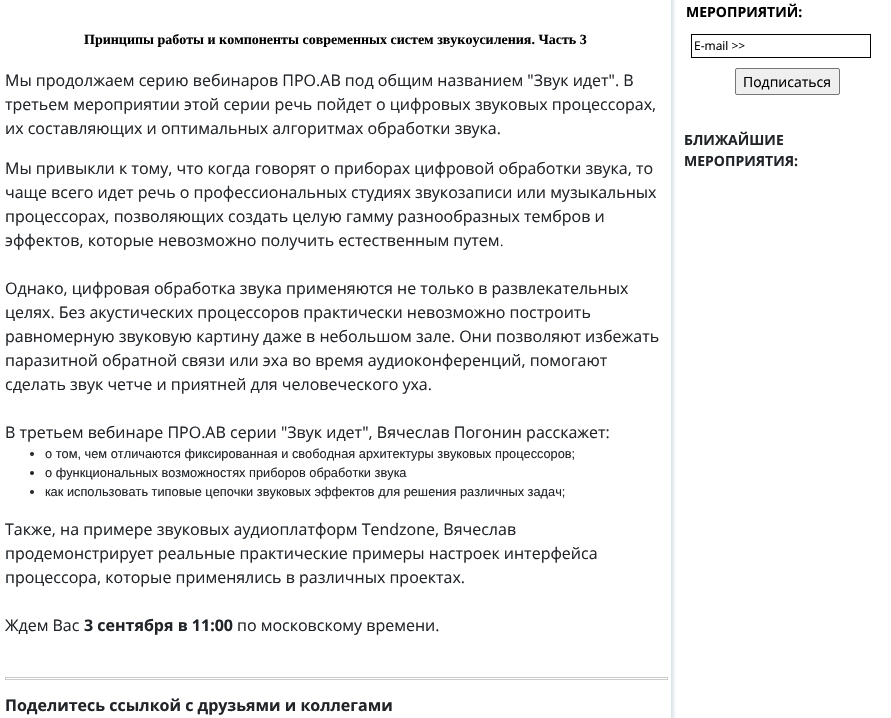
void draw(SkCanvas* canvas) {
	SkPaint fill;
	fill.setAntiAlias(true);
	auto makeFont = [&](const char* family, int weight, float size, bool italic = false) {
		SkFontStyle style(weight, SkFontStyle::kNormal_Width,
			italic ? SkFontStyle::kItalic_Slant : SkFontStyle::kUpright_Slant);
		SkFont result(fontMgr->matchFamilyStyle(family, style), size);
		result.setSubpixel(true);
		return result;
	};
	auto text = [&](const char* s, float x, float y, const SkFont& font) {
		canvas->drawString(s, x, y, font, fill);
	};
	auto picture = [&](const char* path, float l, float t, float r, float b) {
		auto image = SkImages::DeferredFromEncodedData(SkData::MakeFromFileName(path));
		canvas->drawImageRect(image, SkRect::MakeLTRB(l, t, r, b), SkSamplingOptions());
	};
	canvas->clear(0xFFFFFFFF);
	fill.setColor(0xFF212529);
	canvas->drawCircle(32, 454, 2, fill);
	canvas->drawCircle(32, 473, 2, fill);
	canvas->drawCircle(32, 492, 2, fill);
	fill.setStyle(SkPaint::kStroke_Style);
	fill.setStrokeWidth(1);
	fill.setColor(0xFFCCCCCC);
	canvas->drawRect(SkRect::MakeLTRB(5.5f, 677.5f, 667.5f, 679.5f), fill);
	picture("image0.png", 671, 0, 676, 718);
	fill.setColor(0xFF000000);
	canvas->drawRect(SkRect::MakeLTRB(691.5f, 34.5f, 870.5f, 57.5f), fill);
	fill.setStyle(SkPaint::kFill_Style);
	fill.setColor(0xFFEFEFEF);
	canvas->drawRoundRect(SkRect::MakeLTRB(735.5f, 68.5f, 839.5f, 94.5f), 1.5f, 1.5f, fill);
	fill.setStyle(SkPaint::kStroke_Style);
	fill.setColor(0xFF767676);
	canvas->drawRoundRect(SkRect::MakeLTRB(735.5f, 68.5f, 839.5f, 94.5f), 1.5f, 1.5f, fill);
	auto font1 = makeFont("Liberation Serif", 700, 14);
	fill.setStyle(SkPaint::kFill_Style);
	fill.setColor(0xFF000000);
	text("Принципы работы и компоненты современных систем звукоусиления. Часть 3", 84, 44, font1);
	auto font2 = makeFont("Open Sans", 400, 16);
	fill.setColor(0xFF212529);
	text("Мы продолжаем серию вебинаров ПРО.АВ под общим названием \"Звук идет\". В", 5, 86, font2);
	text("третьем мероприятии этой серии речь пойдет о цифровых звуковых процессорах,", 5, 110, font2);
	text("их составляющих и оптимальных алгоритмах обработки звука.", 5, 134, font2);
	text("Мы привыкли к тому, что когда говорят о приборах цифровой обработки звука, то", 5, 174, font2);
	text("чаще всего идет речь о профессиональных студиях звукозаписи или музыкальных", 5, 198, font2);
	text("процессорах, позволяющих создать целую гамму разнообразных тембров и", 5, 222, font2);
	text("эффектов, которые невозможно получить естественным путем", 5, 246, font2);
	auto font3 = makeFont("Open Sans", 400, 12.8f);
	text(".", 500, 246, font3);
	text("Однако, цифровая обработка звука применяются не только в развлекательных", 5, 294, font2);
	text("целях. Без акустических процессоров практически невозможно построить", 5, 318, font2);
	text("равномерную звуковую картину даже в небольшом зале. Они позволяют избежать", 5, 342, font2);
	text("паразитной обратной связи или эха во время аудиоконференций, помогают", 5, 366, font2);
	text("сделать звук четче и приятней для человеческого уха.", 5, 390, font2);
	text("В третьем вебинаре ПРО.АВ серии \"Звук идет\", Вячеслав Погонин расскажет:", 5, 438, font2);
	auto font4 = makeFont("Liberation Sans", 400, 12.8f);
	text("о том, чем отличаются фиксированная и свободная архитектуры звуковых процессоров;", 45, 458, font4);
	text("о функциональных возможностях приборов обработки звука", 45, 477, font4);
	text("как использовать типовые цепочки звуковых эффектов для решения различных задач;", 45, 496, font4);
	text("Также, на примере звуковых аудиоплатформ Tendzone, Вячеслав", 5, 535, font2);
	text("продемонстрирует реальные практические примеры настроек интерфейса", 5, 559, font2);
	text("процессора, которые применялись в различных проектах.", 5, 583, font2);
	text("Ждем Вас", 5, 631, font2);
	auto font5 = makeFont("Open Sans", 700, 16);
	text("3 сентября в 11:00", 84, 631, font5);
	text("по московскому времени.", 237, 631, font2);
	text("Поделитесь ссылкой с друзьями и коллегами", 5, 711, font5);
	auto font6 = makeFont("Open Sans", 700, 14);
	fill.setColor(0xFF000000);
	text("МЕРОПРИЯТИЙ:", 686, 17, font6);
	auto font7 = makeFont("Open Sans", 400, 12);
	text("E-mail >>", 694, 50, font7);
	auto font8 = makeFont("Open Sans", 400, 14);
	text("Подписаться", 743, 87, font8);
	fill.setColor(0xFF212529);
	text("БЛИЖАЙШИЕ", 684, 145, font6);
	text("МЕРОПРИЯТИЯ:", 684, 166, font6);
}
